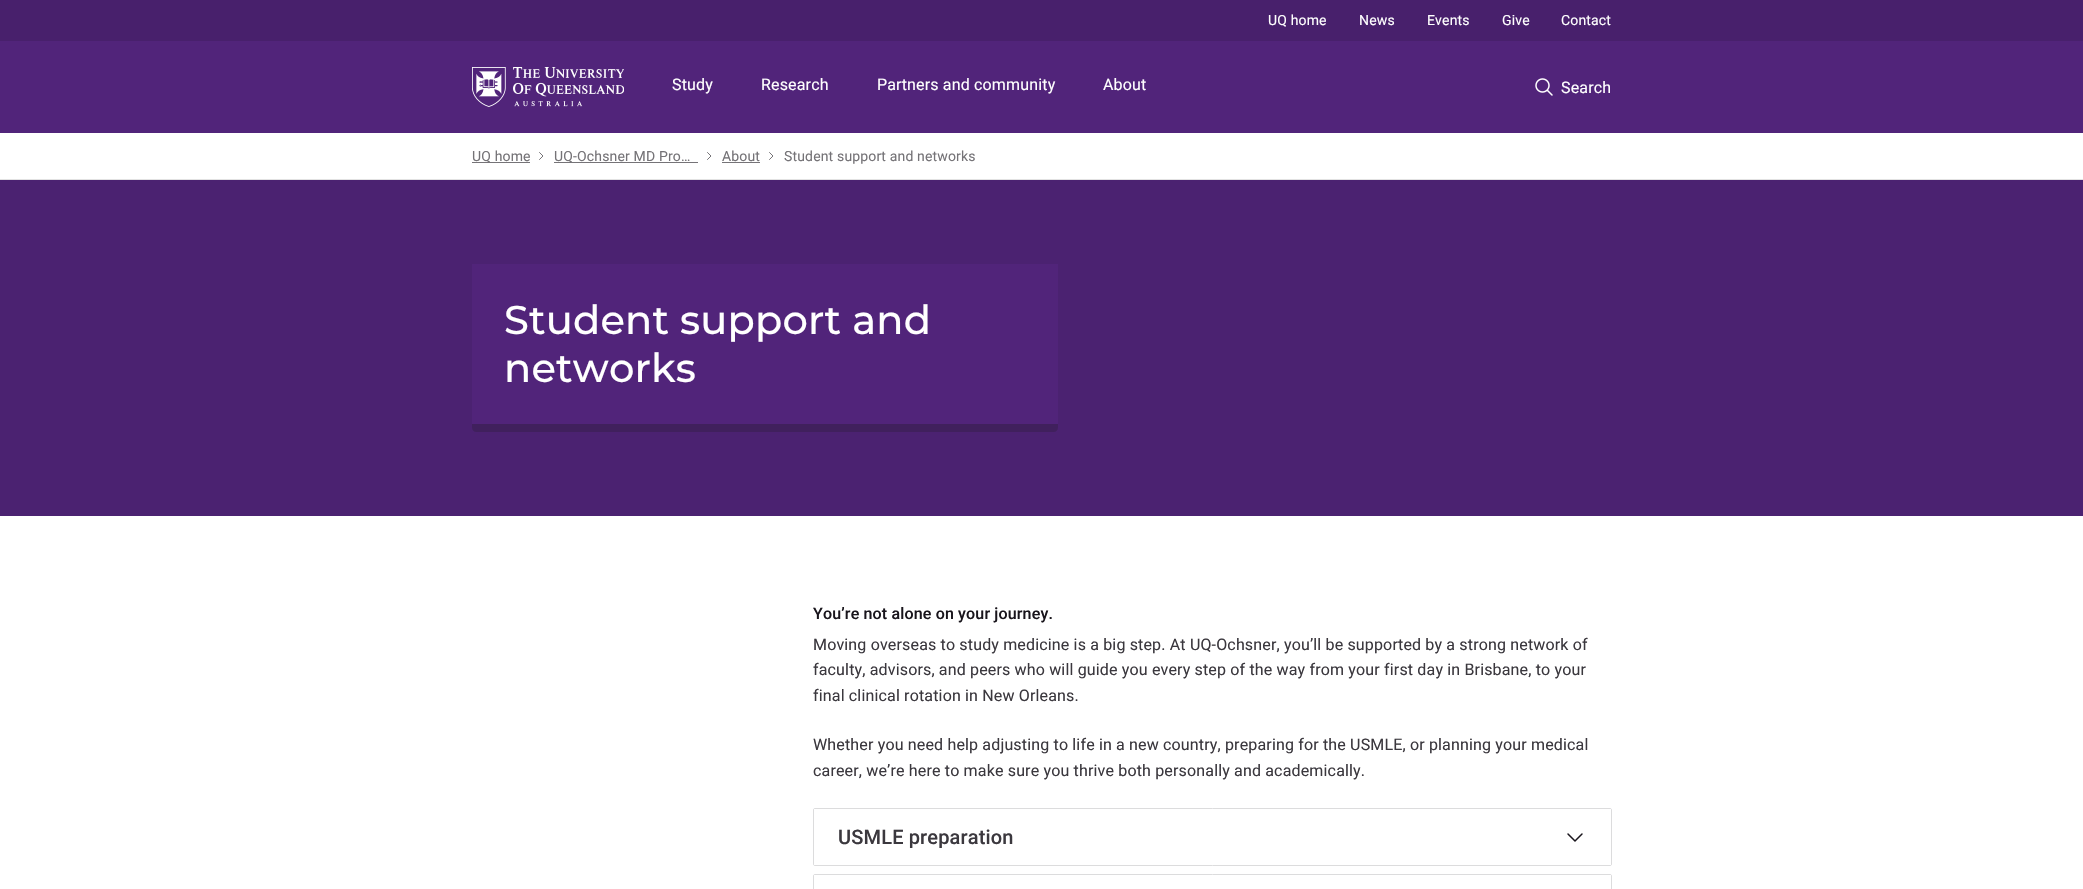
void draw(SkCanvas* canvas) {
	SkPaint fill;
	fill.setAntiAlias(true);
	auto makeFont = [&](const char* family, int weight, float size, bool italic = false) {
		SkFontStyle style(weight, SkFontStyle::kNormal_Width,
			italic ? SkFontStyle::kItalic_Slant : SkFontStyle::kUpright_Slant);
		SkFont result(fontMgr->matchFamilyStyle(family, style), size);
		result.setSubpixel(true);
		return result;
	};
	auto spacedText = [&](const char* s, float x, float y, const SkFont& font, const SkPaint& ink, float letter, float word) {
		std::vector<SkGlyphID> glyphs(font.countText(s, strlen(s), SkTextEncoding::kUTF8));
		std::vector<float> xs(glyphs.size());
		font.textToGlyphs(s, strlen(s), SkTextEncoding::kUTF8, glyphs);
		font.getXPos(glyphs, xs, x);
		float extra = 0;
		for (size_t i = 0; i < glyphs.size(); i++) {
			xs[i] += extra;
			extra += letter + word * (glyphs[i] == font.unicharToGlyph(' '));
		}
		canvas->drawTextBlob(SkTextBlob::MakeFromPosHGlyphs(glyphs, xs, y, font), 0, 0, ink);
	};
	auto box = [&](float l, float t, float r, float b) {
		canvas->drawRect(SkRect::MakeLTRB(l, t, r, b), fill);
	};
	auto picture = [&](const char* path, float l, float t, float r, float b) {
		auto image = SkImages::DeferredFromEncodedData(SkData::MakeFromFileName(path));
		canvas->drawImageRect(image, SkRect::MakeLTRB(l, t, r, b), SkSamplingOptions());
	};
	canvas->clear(0xFFFFFFFF);
	fill.setColor(0xFF51247A);
	box(0, 41, 2083, 133);
	fill.setColor(0xFF48206C);
	box(0, 0, 2083, 41);
	picture("image0.png", 472, 67, 624, 107);
	picture("image1.png", 1535, 78, 1553, 96);
	fill.setColor(0xFFE2E2E2);
	box(0, 179, 2083, 180);
	fill.setColor(0xFF757377);
	box(472, 162, 530, 163);
	fill.setStyle(SkPaint::kStroke_Style);
	fill.setStrokeWidth(1);
	fill.setStrokeCap(SkPaint::kRound_Cap);
	fill.setStrokeJoin(SkPaint::kRound_Join);
	canvas->drawPath(SkPathBuilder().moveTo(539.5f, 159.5f).lineTo(543, 156).lineTo(539.5f, 152.5f).detach(), fill);
	fill.setStyle(SkPaint::kFill_Style);
	box(554, 162, 698, 163);
	fill.setStyle(SkPaint::kStroke_Style);
	canvas->drawPath(SkPathBuilder().moveTo(707.5f, 159.5f).lineTo(711, 156).lineTo(707.5f, 152.5f).detach(), fill);
	fill.setStyle(SkPaint::kFill_Style);
	box(722, 162, 760, 163);
	fill.setStyle(SkPaint::kStroke_Style);
	canvas->drawPath(SkPathBuilder().moveTo(769.5f, 159.5f).lineTo(773, 156).lineTo(769.5f, 152.5f).detach(), fill);
	fill.setStyle(SkPaint::kFill_Style);
	fill.setColor(0xFF4B2271);
	box(0, 180, 2083, 516);
	fill.setColor(0xFF51247A);
	box(472, 264, 1058, 424);
	fill.setColor(0xFF40205D);
	canvas->drawPath(SkPathBuilder().moveTo(472, 424).lineTo(1058, 424).lineTo(1058, 428).cubicTo(1058, 430, 1056, 432, 1054, 432).lineTo(476, 432).cubicTo(474, 432, 472, 430, 472, 428).close().detach(), fill);
	fill.setStyle(SkPaint::kStroke_Style);
	fill.setStrokeCap(SkPaint::kButt_Cap);
	fill.setStrokeJoin(SkPaint::kMiter_Join);
	fill.setColor(0xFFDCDCDD);
	canvas->drawRoundRect(SkRect::MakeLTRB(813.5f, 808.5f, 1611.5f, 865.5f), 1.5f, 1.5f, fill);
	fill.setStyle(SkPaint::kFill_Style);
	fill.setColor(0xFFFFFFFF);
	box(814, 809, 1611, 865);
	fill.setStyle(SkPaint::kStroke_Style);
	fill.setStrokeWidth(1.5f);
	fill.setStrokeCap(SkPaint::kRound_Cap);
	fill.setStrokeJoin(SkPaint::kRound_Join);
	fill.setColor(0xFF19151C);
	canvas->drawPath(SkPathBuilder().moveTo(1568, 834).lineTo(1575, 841).lineTo(1582, 834).detach(), fill);
	fill.setStrokeWidth(1);
	fill.setStrokeCap(SkPaint::kButt_Cap);
	fill.setStrokeJoin(SkPaint::kMiter_Join);
	fill.setColor(0xFFDCDCDD);
	canvas->drawRoundRect(SkRect::MakeLTRB(813.5f, 874.5f, 1611.5f, 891.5f), 1.5f, 1.5f, fill);
	fill.setStyle(SkPaint::kFill_Style);
	fill.setColor(0xFFFFFFFF);
	box(814, 875, 1611, 876);
	auto font1 = makeFont("Roboto", 400, 14);
	spacedText("UQ home", 1268, 25, font1, fill, 0.16f, 0);
	spacedText("News", 1359, 25, font1, fill, 0.16f, 0);
	spacedText("Events", 1427, 25, font1, fill, 0.16f, 0);
	spacedText("Give", 1502, 25, font1, fill, 0.16f, 0);
	spacedText("Contact", 1561, 25, font1, fill, 0.16f, 0);
	auto font2 = makeFont("Roboto", 400, 16);
	spacedText("Study", 672, 90, font2, fill, 0.16f, 0);
	spacedText("Research", 761, 90, font2, fill, 0.16f, 0);
	spacedText("Partners and community", 877, 90, font2, fill, 0.16f, 0);
	spacedText("About", 1103, 90, font2, fill, 0.16f, 0);
	spacedText("Search", 1561, 93, font2, fill, 0.16f, 0);
	fill.setColor(0xFF757377);
	spacedText("UQ home", 472, 161, font1, fill, 0.16f, 0);
	spacedText("UQ-Ochsner MD Pro…", 554, 161, font1, fill, 0.16f, 0);
	spacedText("About", 722, 161, font1, fill, 0.16f, 0);
	spacedText("Student support and networks", 784, 161, font1, fill, 0.16f, 0);
	auto font3 = makeFont("Montserrat", 100, 40);
	fill.setColor(0xFFFFFFFF);
	spacedText("Student support and", 504, 334, font3, fill, 0.16f, 0);
	spacedText("networks", 504, 382, font3, fill, 0.16f, 0);
	auto font4 = makeFont("Roboto", 500, 16);
	fill.setColor(0xFF19151C);
	spacedText("You’re not alone on your journey.", 813, 619, font4, fill, 0.16f, 0);
	fill.setColor(0xFF3B383E);
	spacedText("Moving overseas to study medicine is a big step. At UQ-Ochsner, you’ll be supported by a strong network of", 813, 650, font2, fill, 0.16f, 0);
	spacedText("faculty, advisors, and peers who will guide you every step of the way from your first day in Brisbane, to your", 813, 675, font2, fill, 0.16f, 0);
	spacedText("final clinical rotation in New Orleans.", 813, 701, font2, fill, 0.16f, 0);
	spacedText("Whether you need help adjusting to life in a new country, preparing for the USMLE, or planning your medical", 813, 750, font2, fill, 0.16f, 0);
	spacedText("career, we’re here to make sure you thrive both personally and academically.", 813, 776, font2, fill, 0.16f, 0);
	auto font5 = makeFont("Roboto", 500, 20);
	spacedText("USMLE preparation", 838, 844, font5, fill, 0.16f, 0);
}
